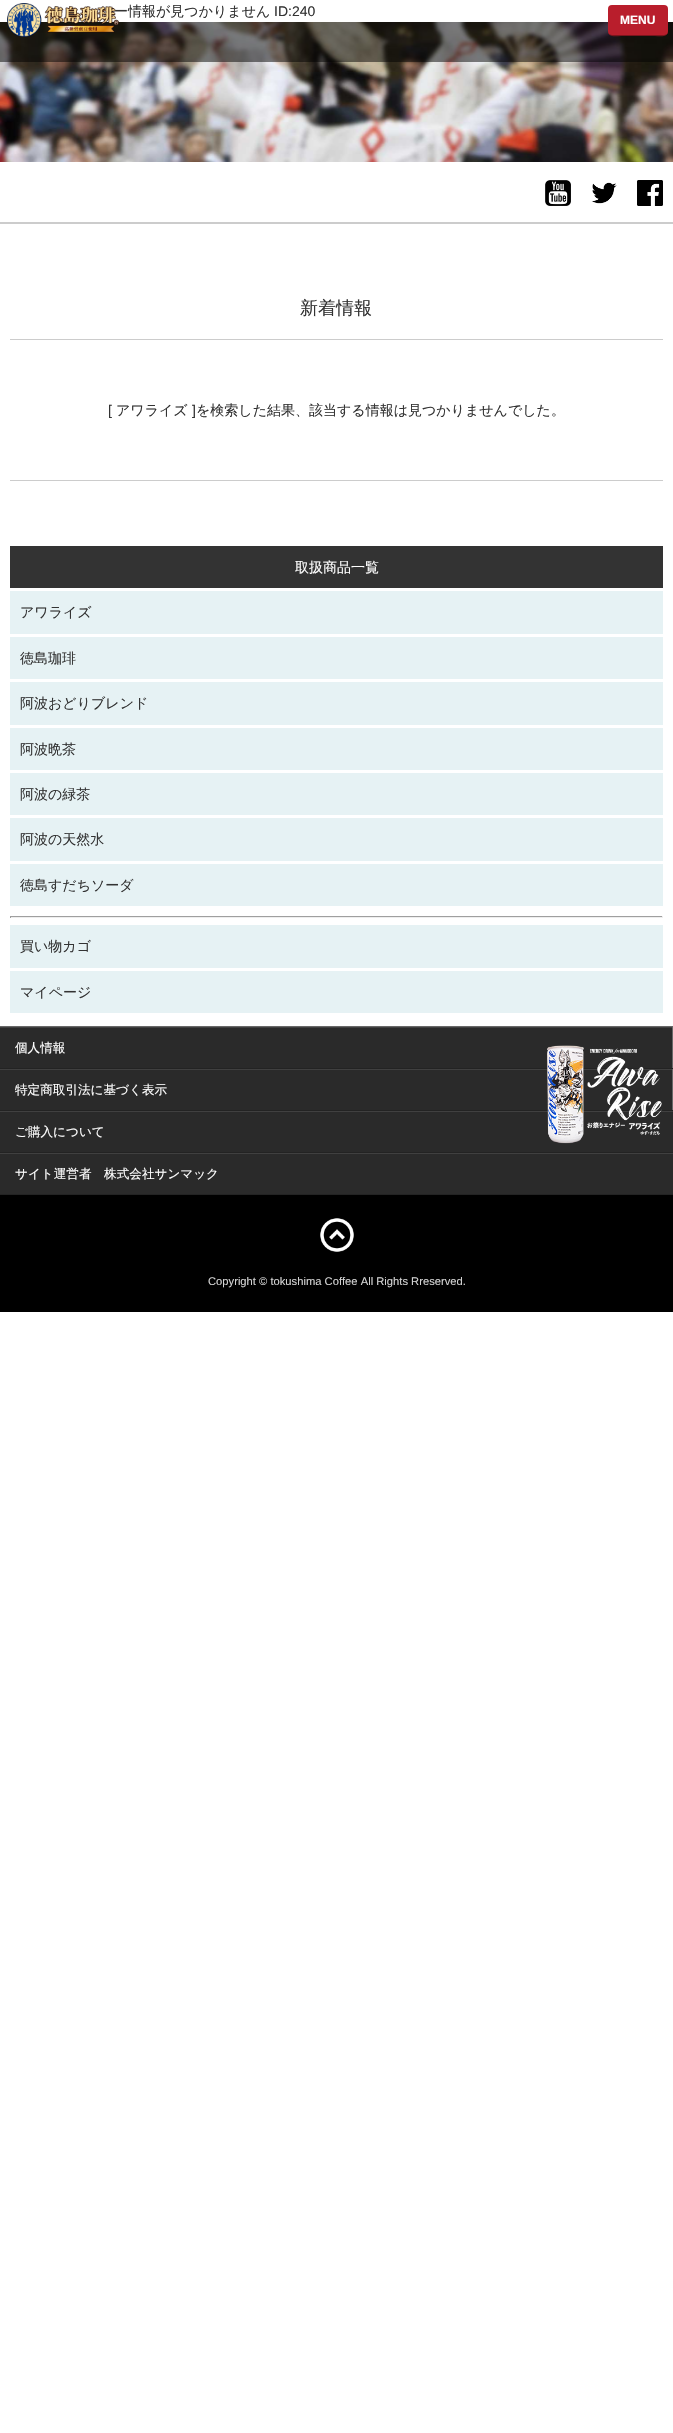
void draw(SkCanvas* canvas) {
	SkPaint fill;
	fill.setAntiAlias(true);
	auto makeFont = [&](const char* family, int weight, float size, bool italic = false) {
		SkFontStyle style(weight, SkFontStyle::kNormal_Width,
			italic ? SkFontStyle::kItalic_Slant : SkFontStyle::kUpright_Slant);
		SkFont result(fontMgr->matchFamilyStyle(family, style), size);
		result.setSubpixel(true);
		return result;
	};
	auto text = [&](const char* s, float x, float y, const SkFont& font) {
		canvas->drawString(s, x, y, font, fill);
	};
	auto box = [&](float l, float t, float r, float b) {
		canvas->drawRect(SkRect::MakeLTRB(l, t, r, b), fill);
	};
	auto roundBox = [&](float l, float t, float r, float b, float radius) {
		canvas->drawRoundRect(SkRect::MakeLTRB(l, t, r, b), radius, radius, fill);
	};
	auto picture = [&](const char* path, float l, float t, float r, float b) {
		auto image = SkImages::DeferredFromEncodedData(SkData::MakeFromFileName(path));
		canvas->drawImageRect(image, SkRect::MakeLTRB(l, t, r, b), SkSamplingOptions());
	};
	canvas->clear(0xFFFFFFFF);
	picture("image1.png", 0, 22, 673, 162);
	fill.setColor(0x80000000);
	box(0, 22, 673, 62);
	fill.setColor(0xFF7B151D);
	canvas->drawPath(SkPathBuilder().moveTo(608, 31).cubicTo(608, 38, 616, 36, 621, 36).lineTo(655, 36).cubicTo(660, 36, 668, 38, 668, 31).cubicTo(668, 33, 666, 35, 664, 35).lineTo(612, 35).cubicTo(610, 35, 608, 33, 608, 31).close().detach(), fill);
	fill.setColor(0xFFB91E2C);
	roundBox(608, 5, 668, 35, 4);
	fill.setColor(0xFFCCCCCC);
	box(0, 222, 673, 224);
	picture("image2.png", 545, 180, 571, 206);
	picture("image3.png", 591, 182, 617, 204);
	picture("image4.png", 637, 180, 663, 206);
	box(10, 339, 663, 340);
	box(10, 480, 663, 481);
	fill.setColor(0xFF333333);
	box(10, 546, 663, 588);
	fill.setColor(0xFFE6F2F4);
	box(10, 591, 663, 634);
	box(10, 637, 663, 679);
	box(10, 682, 663, 725);
	box(10, 728, 663, 770);
	box(10, 773, 663, 815);
	box(10, 818, 663, 861);
	box(10, 864, 663, 906);
	fill.setColor(0xFF9F9F9F);
	box(10, 916, 663, 917);
	fill.setColor(0xFFEEEEEE);
	box(662, 916, 663, 918);
	box(10, 917, 663, 918);
	fill.setColor(0xFF9F9F9F);
	box(10, 916, 11, 918);
	fill.setColor(0xFFE6F2F4);
	box(10, 925, 663, 968);
	box(10, 971, 663, 1013);
	fill.setColor(0xFF2A2A2A);
	box(0, 1028, 673, 1194);
	fill.setColor(0xFF686868);
	box(0, 1026, 673, 1027);
	fill.setColor(0xFF404040);
	box(0, 1027, 673, 1028);
	fill.setColor(0xFF686868);
	box(672, 1027, 673, 1069);
	fill.setColor(0xFF232323);
	box(0, 1068, 673, 1069);
	fill.setColor(0xFF404040);
	box(0, 1069, 673, 1070);
	fill.setColor(0xFF686868);
	box(672, 1069, 673, 1111);
	fill.setColor(0xFF232323);
	box(0, 1110, 673, 1111);
	fill.setColor(0xFF404040);
	box(0, 1111, 673, 1112);
	fill.setColor(0xFF232323);
	box(0, 1152, 673, 1153);
	fill.setColor(0xFF404040);
	box(0, 1153, 673, 1154);
	fill.setColor(0xFF232323);
	box(0, 1194, 673, 1195);
	picture("image5.png", 547, 1045, 662, 1144);
	fill.setColor(0xFF000000);
	box(0, 1195, 673, 1312);
	picture("image6.png", 320, 1218, 354, 1252);
	auto font1 = makeFont("WenQuanYi Zen Hei", 500, 14);
	fill.setColor(0xFF333333);
	text("ー情報が見つかりません", 114, 16, font1);
	picture("image0.png", 7, 3, 119, 37);
	auto font2 = makeFont("Liberation Sans", 400, 14);
	text("ID:240", 274, 16, font2);
	auto font3 = makeFont("Liberation Sans", 700, 12);
	fill.setColor(0xFFFFFFFF);
	text("MENU", 620, 24, font3);
	auto font4 = makeFont("WenQuanYi Zen Hei", 500, 18);
	fill.setColor(0xFF333333);
	text("新着情報", 300, 314, font4);
	text("[", 108, 415, font2);
	text("アワライズ", 116, 415, font1);
	text("]", 192, 415, font2);
	text("を検索した結果、該当する情報は見つかりませんでした。", 196, 415, font1);
	fill.setColor(0xFFFFFFFF);
	text("取扱商品一覧", 295, 572, font1);
	fill.setColor(0xFF333333);
	text("アワライズ", 20, 617, font1);
	text("徳島珈琲", 20, 663, font1);
	text("阿波おどりブレンド", 20, 708, font1);
	text("阿波晩茶", 20, 754, font1);
	text("阿波の緑茶", 20, 799, font1);
	text("阿波の天然水", 20, 844, font1);
	text("徳島すだちソーダ", 20, 890, font1);
	text("買い物カゴ", 20, 951, font1);
	text("マイページ", 20, 997, font1);
	auto font5 = makeFont("WenQuanYi Zen Hei", 500, 12.6f);
	fill.setColor(0xFFFFFFFF);
	text("個人情報", 15, 1052, font5);
	text("特定商取引法に基づく表示", 15, 1094, font5);
	text("ご購入について", 15, 1136, font5);
	text("サイト運営者　株式会社サンマック", 15, 1178, font5);
	auto font6 = makeFont("Liberation Sans", 400, 11.2f);
	fill.setColor(0xFFD4D4D4);
	text("Copyright © tokushima Coffee All Rights Rreserved.", 208, 1285, font6);
}
